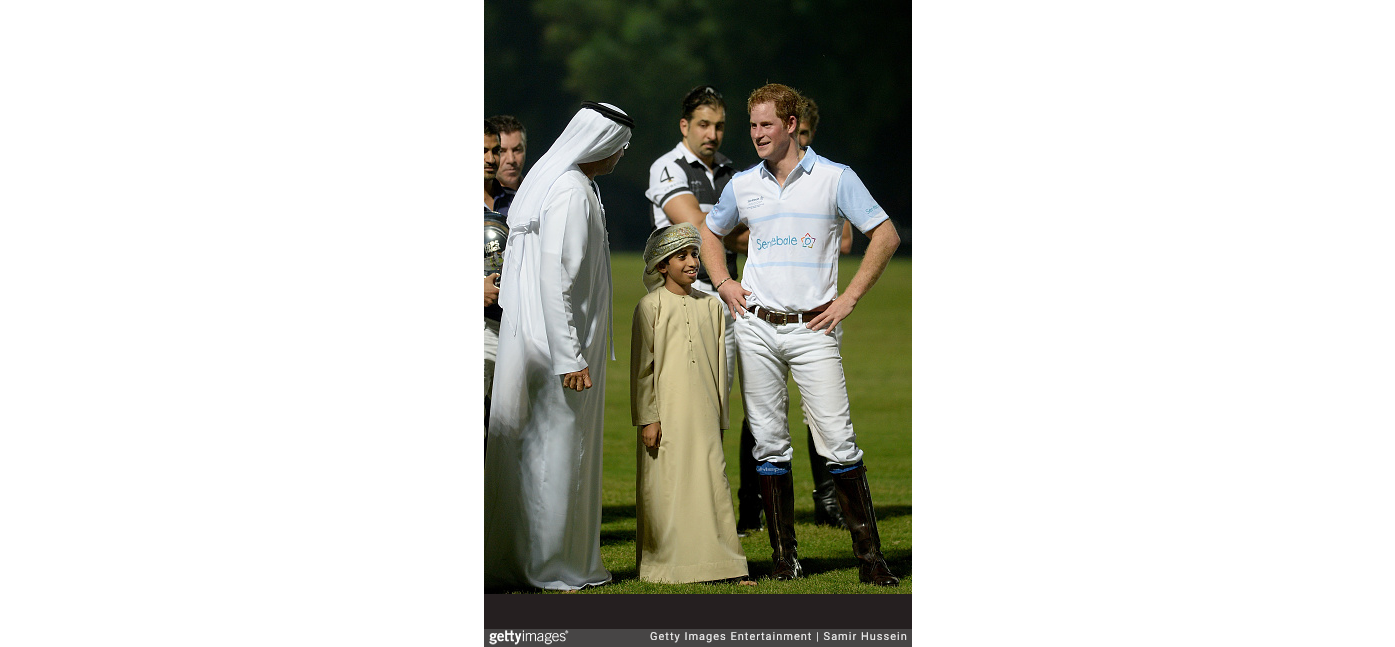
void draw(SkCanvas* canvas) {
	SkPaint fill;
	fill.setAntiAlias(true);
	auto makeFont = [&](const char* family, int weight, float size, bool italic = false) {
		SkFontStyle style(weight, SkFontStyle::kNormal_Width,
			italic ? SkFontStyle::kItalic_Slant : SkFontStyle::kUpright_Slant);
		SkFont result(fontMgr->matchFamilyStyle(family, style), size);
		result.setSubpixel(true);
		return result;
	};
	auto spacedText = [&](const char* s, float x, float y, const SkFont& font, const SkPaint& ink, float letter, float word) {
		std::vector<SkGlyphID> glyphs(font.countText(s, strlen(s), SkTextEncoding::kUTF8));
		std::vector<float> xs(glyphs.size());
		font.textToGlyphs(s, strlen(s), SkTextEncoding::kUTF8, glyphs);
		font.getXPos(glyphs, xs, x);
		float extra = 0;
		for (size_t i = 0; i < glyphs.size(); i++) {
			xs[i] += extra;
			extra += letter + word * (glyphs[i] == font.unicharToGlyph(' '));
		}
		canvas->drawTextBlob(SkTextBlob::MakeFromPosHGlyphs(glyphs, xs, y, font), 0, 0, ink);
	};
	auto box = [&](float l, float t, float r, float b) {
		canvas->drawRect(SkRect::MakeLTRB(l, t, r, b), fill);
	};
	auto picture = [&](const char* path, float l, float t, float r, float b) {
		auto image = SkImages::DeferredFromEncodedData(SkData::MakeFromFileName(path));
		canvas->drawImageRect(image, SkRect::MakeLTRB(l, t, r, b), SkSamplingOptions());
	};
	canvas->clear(0xFFFFFFFF);
	fill.setColor(0xFF251F20);
	box(484, 594, 912, 629);
	picture("image0.png", 484, 0, 912, 594);
	fill.setColor(0xFF474545);
	box(484, 629, 912, 647);
	picture("image1.png", 489, 630, 569, 645);
	auto font1 = makeFont("Roboto", 400, 11);
	fill.setColor(0xFFEEEEEE);
	spacedText("Getty Images Entertainment | Samir Hussein", 650, 640, font1, fill, 1, 0);
}
